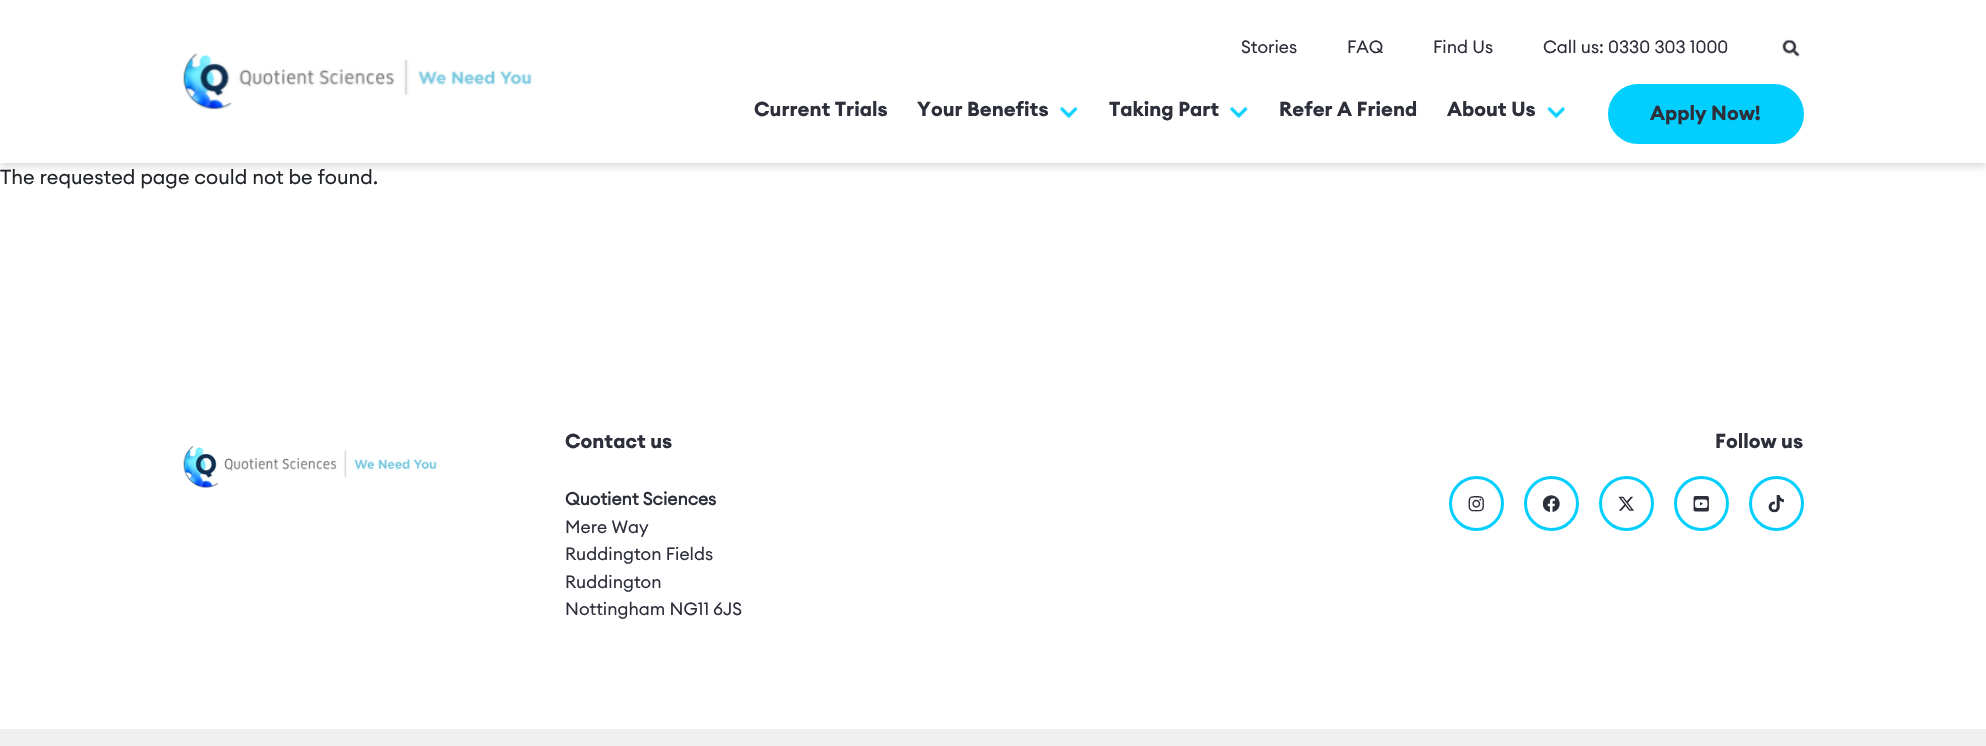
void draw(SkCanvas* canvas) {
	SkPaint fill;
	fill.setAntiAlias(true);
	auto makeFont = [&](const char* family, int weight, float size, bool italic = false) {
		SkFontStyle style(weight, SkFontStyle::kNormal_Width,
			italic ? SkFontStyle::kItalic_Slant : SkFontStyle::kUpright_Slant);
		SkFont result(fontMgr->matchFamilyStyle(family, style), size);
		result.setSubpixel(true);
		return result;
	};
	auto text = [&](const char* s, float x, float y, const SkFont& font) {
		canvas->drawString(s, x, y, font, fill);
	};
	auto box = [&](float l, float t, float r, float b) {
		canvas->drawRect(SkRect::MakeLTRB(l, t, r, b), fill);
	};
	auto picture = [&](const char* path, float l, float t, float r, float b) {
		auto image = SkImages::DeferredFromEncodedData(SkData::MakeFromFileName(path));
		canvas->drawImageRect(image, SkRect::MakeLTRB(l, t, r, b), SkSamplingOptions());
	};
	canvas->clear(0xFFFFFFFF);
	fill.setColor(0x29000000);
	fill.setMaskFilter(SkMaskFilter::MakeBlur(kNormal_SkBlurStyle, 4));
	canvas->drawRect(SkRect::MakeLTRB(0, 4, 1986, 166), fill);
	fill.setMaskFilter(nullptr);
	fill.setColor(0xFFFFFFFF);
	box(0, 0, 1986, 163);
	picture("image0.png", 183, 53, 532, 110);
	picture("image1.png", 1782, 39, 1800, 57);
	picture("image2.png", 1059, 106, 1078, 119);
	picture("image2.png", 1229, 106, 1248, 119);
	picture("image3.png", 1547, 106, 1565, 119);
	fill.setColor(0xFF03CFFF);
	canvas->drawRoundRect(SkRect::MakeLTRB(1609.5f, 85.5f, 1802.5f, 142.5f), 28.5f, 28.5f, fill);
	fill.setStyle(SkPaint::kStroke_Style);
	fill.setStrokeWidth(3);
	canvas->drawRoundRect(SkRect::MakeLTRB(1609.5f, 85.5f, 1802.5f, 142.5f), 28.5f, 28.5f, fill);
	canvas->drawCircle(1476.5f, 503.5f, 26, fill);
	picture("image4.png", 1468, 496, 1484, 512);
	canvas->drawCircle(1551.5f, 503.5f, 26, fill);
	picture("image5.png", 1542, 495, 1560, 512);
	canvas->drawCircle(1626.5f, 503.5f, 26, fill);
	picture("image6.png", 1618, 496, 1634, 511);
	canvas->drawCircle(1701.5f, 503.5f, 26, fill);
	picture("image7.png", 1693, 496, 1709, 512);
	canvas->drawCircle(1776.5f, 503.5f, 26, fill);
	picture("image8.png", 1768, 495, 1784, 513);
	picture("image9.png", 183, 446, 437, 488);
	fill.setStyle(SkPaint::kFill_Style);
	fill.setColor(0xFFEFEFEF);
	box(0, 729, 1986, 746);
	auto font1 = makeFont("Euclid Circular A", 400, 17.5f);
	fill.setColor(0xFF2D2F3B);
	text("Stories", 1241, 53, font1);
	text("FAQ", 1347, 53, font1);
	text("Find Us", 1433, 53, font1);
	text("Call us: 0330 303 1000", 1543, 53, font1);
	auto font2 = makeFont("Euclid Circular A", 700, 20);
	text("Current Trials", 754, 116, font2);
	text("Your Benefits", 917, 116, font2);
	text("Taking Part", 1109, 116, font2);
	text("Refer A Friend", 1279, 116, font2);
	text("About Us", 1447, 116, font2);
	text("Apply Now!", 1650, 120, font2);
	auto font3 = makeFont("Euclid Circular A", 400, 20);
	fill.setColor(0xFF212529);
	text("The requested page could not be found.", 0, 184, font3);
	fill.setColor(0xFF2D2F3B);
	text("Contact us", 565, 448, font2);
	auto font4 = makeFont("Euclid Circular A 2", 700, 17.5f);
	text("Quotient Sciences", 565, 505, font4);
	text("Mere Way", 565, 533, font1);
	text("Ruddington Fields", 565, 560, font1);
	text("Ruddington", 565, 588, font1);
	text("Nottingham NG11 6JS", 565, 615, font1);
	text("Follow us", 1715, 448, font2);
}
